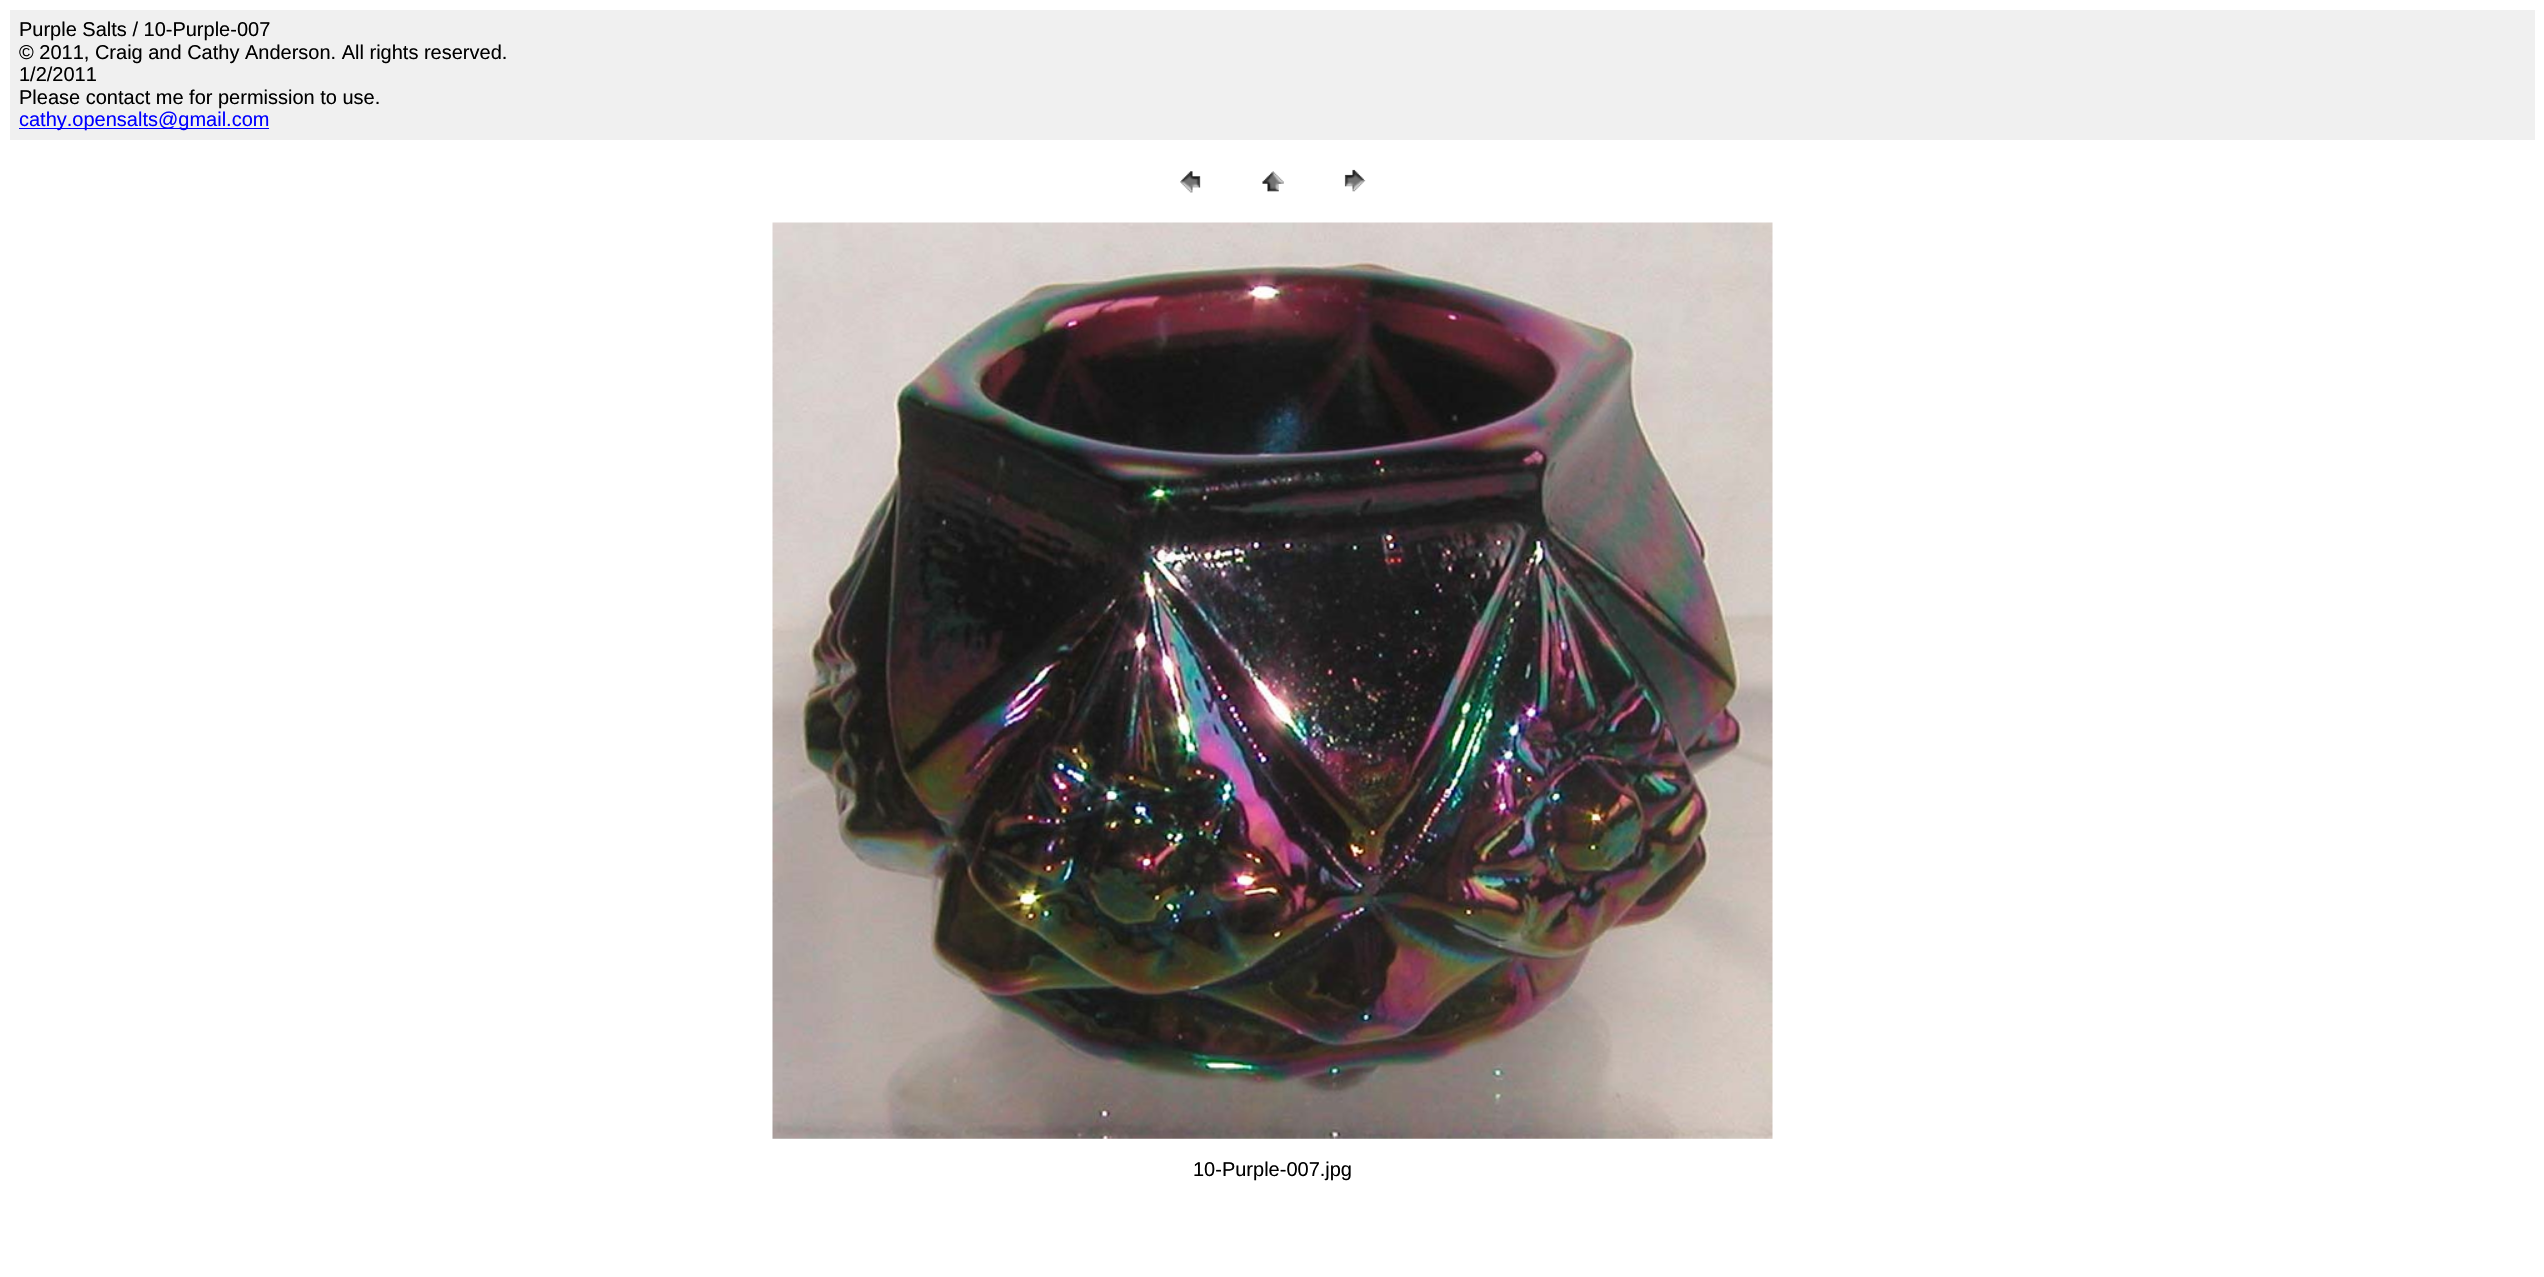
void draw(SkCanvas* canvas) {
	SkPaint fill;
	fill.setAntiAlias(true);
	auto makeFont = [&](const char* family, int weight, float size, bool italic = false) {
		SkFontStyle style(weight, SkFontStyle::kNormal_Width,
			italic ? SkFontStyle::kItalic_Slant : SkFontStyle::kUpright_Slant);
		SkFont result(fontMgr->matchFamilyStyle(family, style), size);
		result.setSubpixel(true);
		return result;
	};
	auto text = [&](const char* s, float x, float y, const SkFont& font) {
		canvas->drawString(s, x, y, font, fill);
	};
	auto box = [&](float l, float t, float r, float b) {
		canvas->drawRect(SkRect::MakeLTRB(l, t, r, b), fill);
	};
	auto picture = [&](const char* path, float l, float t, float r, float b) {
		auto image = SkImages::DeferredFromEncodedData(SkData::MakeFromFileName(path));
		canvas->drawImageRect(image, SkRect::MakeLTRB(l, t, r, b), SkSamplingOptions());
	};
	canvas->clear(0xFFFFFFFF);
	fill.setColor(0xFFF0F0F0);
	box(10, 10, 2535, 140);
	fill.setColor(0xFF0000FF);
	box(19, 128, 269, 129);
	picture("image0.png", 1180, 171, 1201, 193);
	picture("image1.png", 1262, 171, 1284, 192);
	picture("image2.png", 1344, 169, 1366, 192);
	picture("image3.png", 772, 222, 1773, 1139);
	auto font1 = makeFont("Liberation Sans", 400, 20);
	fill.setColor(0xFF000000);
	text("Purple Salts / 10-Purple-007", 19, 36, font1);
	text("© 2011, Craig and Cathy Anderson. All rights reserved.", 19, 59, font1);
	text("1/2/2011", 19, 81, font1);
	text("Please contact me for permission to use.", 19, 104, font1);
	fill.setColor(0xFF0000FF);
	text("cathy.opensalts@gmail.com", 19, 126, font1);
	fill.setColor(0xFF000000);
	text("10-Purple-007.jpg", 1193, 1176, font1);
}
